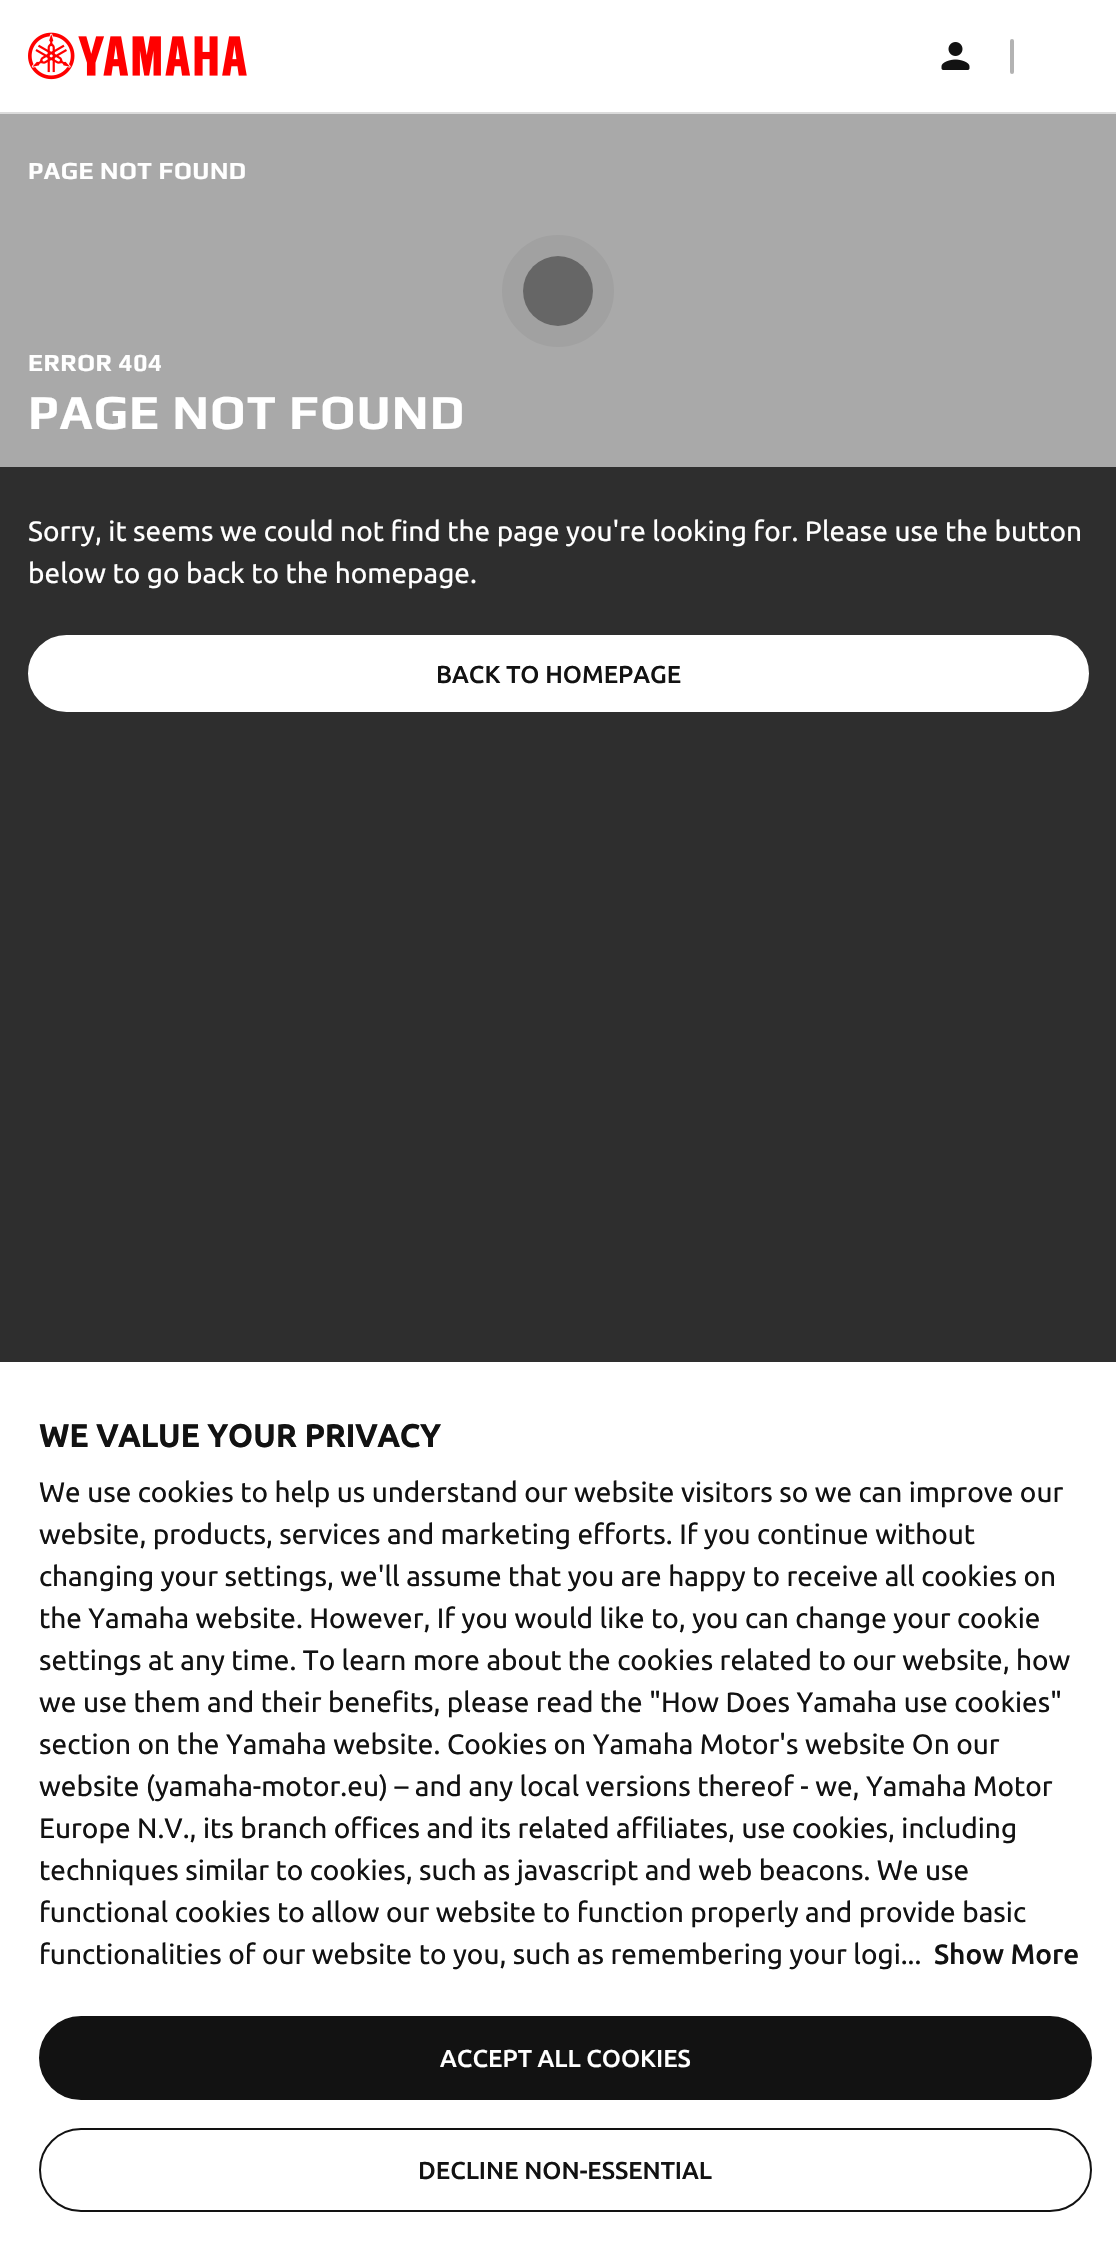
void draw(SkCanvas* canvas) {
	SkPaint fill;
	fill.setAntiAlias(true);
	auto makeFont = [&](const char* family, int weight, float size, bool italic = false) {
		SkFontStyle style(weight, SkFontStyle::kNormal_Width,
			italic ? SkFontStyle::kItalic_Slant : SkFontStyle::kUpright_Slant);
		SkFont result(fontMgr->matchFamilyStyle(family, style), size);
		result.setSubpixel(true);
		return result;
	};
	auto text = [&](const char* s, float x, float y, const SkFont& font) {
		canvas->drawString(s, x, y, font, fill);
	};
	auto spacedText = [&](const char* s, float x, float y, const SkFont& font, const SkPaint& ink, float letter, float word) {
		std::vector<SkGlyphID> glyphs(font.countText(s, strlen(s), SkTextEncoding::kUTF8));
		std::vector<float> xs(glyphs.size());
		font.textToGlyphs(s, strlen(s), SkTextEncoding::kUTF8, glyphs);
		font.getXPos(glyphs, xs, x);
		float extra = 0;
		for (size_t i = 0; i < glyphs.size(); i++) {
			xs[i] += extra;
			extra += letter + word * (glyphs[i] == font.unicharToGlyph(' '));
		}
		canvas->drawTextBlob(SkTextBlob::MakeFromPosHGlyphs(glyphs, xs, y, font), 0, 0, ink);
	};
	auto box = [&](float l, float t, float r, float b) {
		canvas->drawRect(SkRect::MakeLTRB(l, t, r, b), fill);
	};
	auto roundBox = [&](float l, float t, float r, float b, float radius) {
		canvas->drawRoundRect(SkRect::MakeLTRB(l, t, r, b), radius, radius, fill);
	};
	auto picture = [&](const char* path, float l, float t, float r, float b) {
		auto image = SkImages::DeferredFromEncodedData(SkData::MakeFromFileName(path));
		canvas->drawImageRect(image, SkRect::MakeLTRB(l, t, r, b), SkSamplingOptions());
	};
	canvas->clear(0xFF2E2E2E);
	fill.setColor(0xFFFFFFFF);
	box(0, 0, 1116, 112);
	fill.setColor(0xFFDBDBDB);
	box(0, 112, 1116, 114);
	picture("image0.png", 28, 32, 247, 80);
	picture("image1.png", 941, 42, 970, 70);
	fill.setColor(0xFFB3B3B3);
	roundBox(1010, 39, 1014, 74, 2);
	fill.setColor(0xFFA9A9A9);
	box(0, 114, 1116, 467);
	fill.setStyle(SkPaint::kStroke_Style);
	fill.setStrokeWidth(21);
	fill.setColor(0xFFA1A1A1);
	canvas->drawCircle(558, 291, 45.5f, fill);
	fill.setStyle(SkPaint::kFill_Style);
	fill.setColor(0xFF666666);
	canvas->drawCircle(558, 291, 35, fill);
	fill.setColor(0xFFFFFFFF);
	canvas->drawRoundRect(SkRect::MakeLTRB(29, 636, 1088, 711), 37.5f, 37.5f, fill);
	fill.setStyle(SkPaint::kStroke_Style);
	fill.setStrokeWidth(2);
	canvas->drawRoundRect(SkRect::MakeLTRB(29, 636, 1088, 711), 37.5f, 37.5f, fill);
	fill.setStyle(SkPaint::kFill_Style);
	box(0, 1362, 1116, 2264);
	fill.setColor(0xFF121212);
	canvas->drawRoundRect(SkRect::MakeLTRB(40, 2017, 1091, 2099), 41, 41, fill);
	fill.setStyle(SkPaint::kStroke_Style);
	canvas->drawRoundRect(SkRect::MakeLTRB(40, 2017, 1091, 2099), 41, 41, fill);
	canvas->drawRoundRect(SkRect::MakeLTRB(40, 2129, 1091, 2211), 41, 41, fill);
	auto font1 = makeFont("Play", 700, 24.5f);
	fill.setStyle(SkPaint::kFill_Style);
	fill.setColor(0xFFFFFFFF);
	spacedText("PAGE NOT FOUND", 28, 179, font1, fill, 0.5f, 0);
	spacedText("ERROR 404", 28, 371, font1, fill, 0.5f, 0);
	auto font2 = makeFont("Play", 700, 49);
	spacedText("PAGE NOT FOUND", 28, 429, font2, fill, 1, 0);
	auto font3 = makeFont("Ubuntu", 400, 28);
	text("Sorry, it seems we could not find the page you're looking for. Please use the button", 28, 541, font3);
	text("below to go back to the homepage.", 28, 583, font3);
	auto font4 = makeFont("Ubuntu", 500, 24.5f);
	fill.setColor(0xFF121212);
	text("BACK TO HOMEPAGE", 436, 683, font4);
	auto font5 = makeFont("Ubuntu", 700, 31.5f);
	spacedText("WE VALUE YOUR PRIVACY", 39, 1447, font5, fill, 0.6f, 0);
	text("We use cookies to help us understand our website visitors so we can improve our", 39, 1502, font3);
	text("website, products, services and marketing efforts. If you continue without", 39, 1544, font3);
	text("changing your settings, we'll assume that you are happy to receive all cookies on", 39, 1586, font3);
	text("the Yamaha website. However, If you would like to, you can change your cookie", 39, 1628, font3);
	text("settings at any time. To learn more about the cookies related to our website, how", 39, 1670, font3);
	text("we use them and their benefits, please read the \"How Does Yamaha use cookies\"", 39, 1712, font3);
	text("section on the Yamaha website. Cookies on Yamaha Motor's website On our", 39, 1754, font3);
	text("website (yamaha-motor.eu) – and any local versions thereof - we, Yamaha Motor", 39, 1796, font3);
	text("Europe N.V., its branch offices and its related affiliates, use cookies, including", 39, 1838, font3);
	text("techniques similar to cookies, such as javascript and web beacons. We use", 39, 1880, font3);
	text("functional cookies to allow our website to function properly and provide basic", 39, 1922, font3);
	text("functionalities of our website to you, such as remembering your logi...", 39, 1964, font3);
	auto font6 = makeFont("Ubuntu", 500, 28);
	text("Show More", 934, 1964, font6);
	fill.setColor(0xFFFFFFFF);
	text("ACCEPT ALL COOKIES", 440, 2067, font4);
	fill.setColor(0xFF121212);
	text("DECLINE NON-ESSENTIAL", 418, 2179, font4);
}
